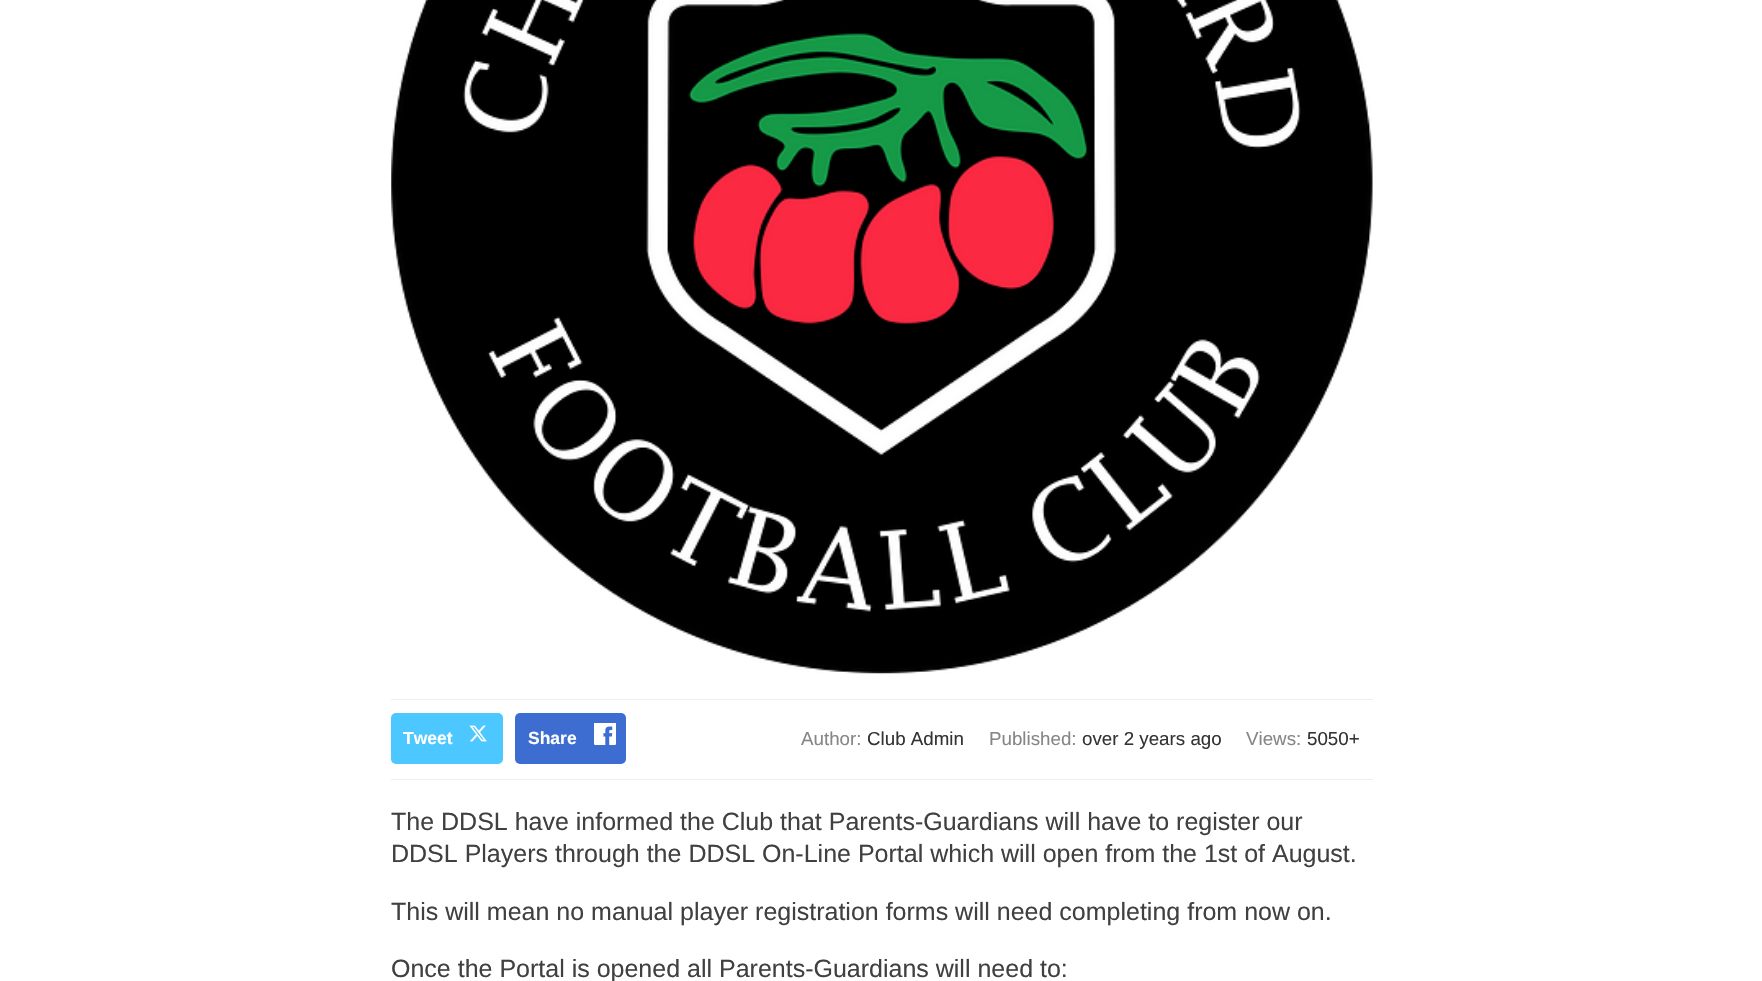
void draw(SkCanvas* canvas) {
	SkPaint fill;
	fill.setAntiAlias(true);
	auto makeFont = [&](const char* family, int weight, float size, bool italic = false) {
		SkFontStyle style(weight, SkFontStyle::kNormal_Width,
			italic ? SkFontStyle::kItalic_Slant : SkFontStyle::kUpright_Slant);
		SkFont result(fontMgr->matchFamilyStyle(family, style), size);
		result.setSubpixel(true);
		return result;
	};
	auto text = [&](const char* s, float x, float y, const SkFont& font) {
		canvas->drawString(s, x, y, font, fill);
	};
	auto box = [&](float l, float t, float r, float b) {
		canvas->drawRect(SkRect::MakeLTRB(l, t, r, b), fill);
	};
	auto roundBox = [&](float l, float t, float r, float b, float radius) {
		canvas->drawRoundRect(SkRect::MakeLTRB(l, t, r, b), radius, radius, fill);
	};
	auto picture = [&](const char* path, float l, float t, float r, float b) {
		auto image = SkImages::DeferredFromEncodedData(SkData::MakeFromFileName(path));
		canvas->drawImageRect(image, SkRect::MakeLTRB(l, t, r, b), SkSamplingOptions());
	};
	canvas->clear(0xFFFFFFFF);
	picture("image0.png", 391, 0, 1373, 674);
	fill.setColor(0xFFEFEFEF);
	box(391, 699, 1373, 700);
	box(391, 779, 1373, 780);
	fill.setColor(0xFF4CC7FF);
	roundBox(391, 713, 503, 764, 5);
	picture("image1.png", 469, 725, 487, 742);
	fill.setColor(0xFF3D6DD1);
	roundBox(515, 713, 626, 764, 5);
	picture("image2.png", 594, 723, 616, 745);
	auto font1 = makeFont("Liberation Sans", 700, 17.5f);
	fill.setColor(0xFFFFFFFF);
	text("Tweet", 403, 744, font1);
	text("Share", 528, 744, font1);
	auto font2 = makeFont("Liberation Sans", 400, 18.75f);
	fill.setColor(0xFF868686);
	text("Author:", 801, 745, font2);
	fill.setColor(0xFF333333);
	text("Club Admin", 867, 745, font2);
	fill.setColor(0xFF868686);
	text("Published:", 989, 745, font2);
	fill.setColor(0xFF333333);
	text("over 2 years ago", 1082, 745, font2);
	fill.setColor(0xFF868686);
	text("Views:", 1246, 745, font2);
	fill.setColor(0xFF333333);
	text("5050+", 1307, 745, font2);
	auto font3 = makeFont("Liberation Sans", 400, 25);
	fill.setColor(0xFF404040);
	text("The DDSL have informed the Club that Parents-Guardians will have to register our", 391, 830, font3);
	text("DDSL Players through the DDSL On-Line Portal which will open from the 1st of August.", 391, 862, font3);
	text("This will mean no manual player registration forms will need completing from now on.", 391, 920, font3);
	text("Once the Portal is opened all Parents-Guardians will need to:", 391, 977, font3);
}
